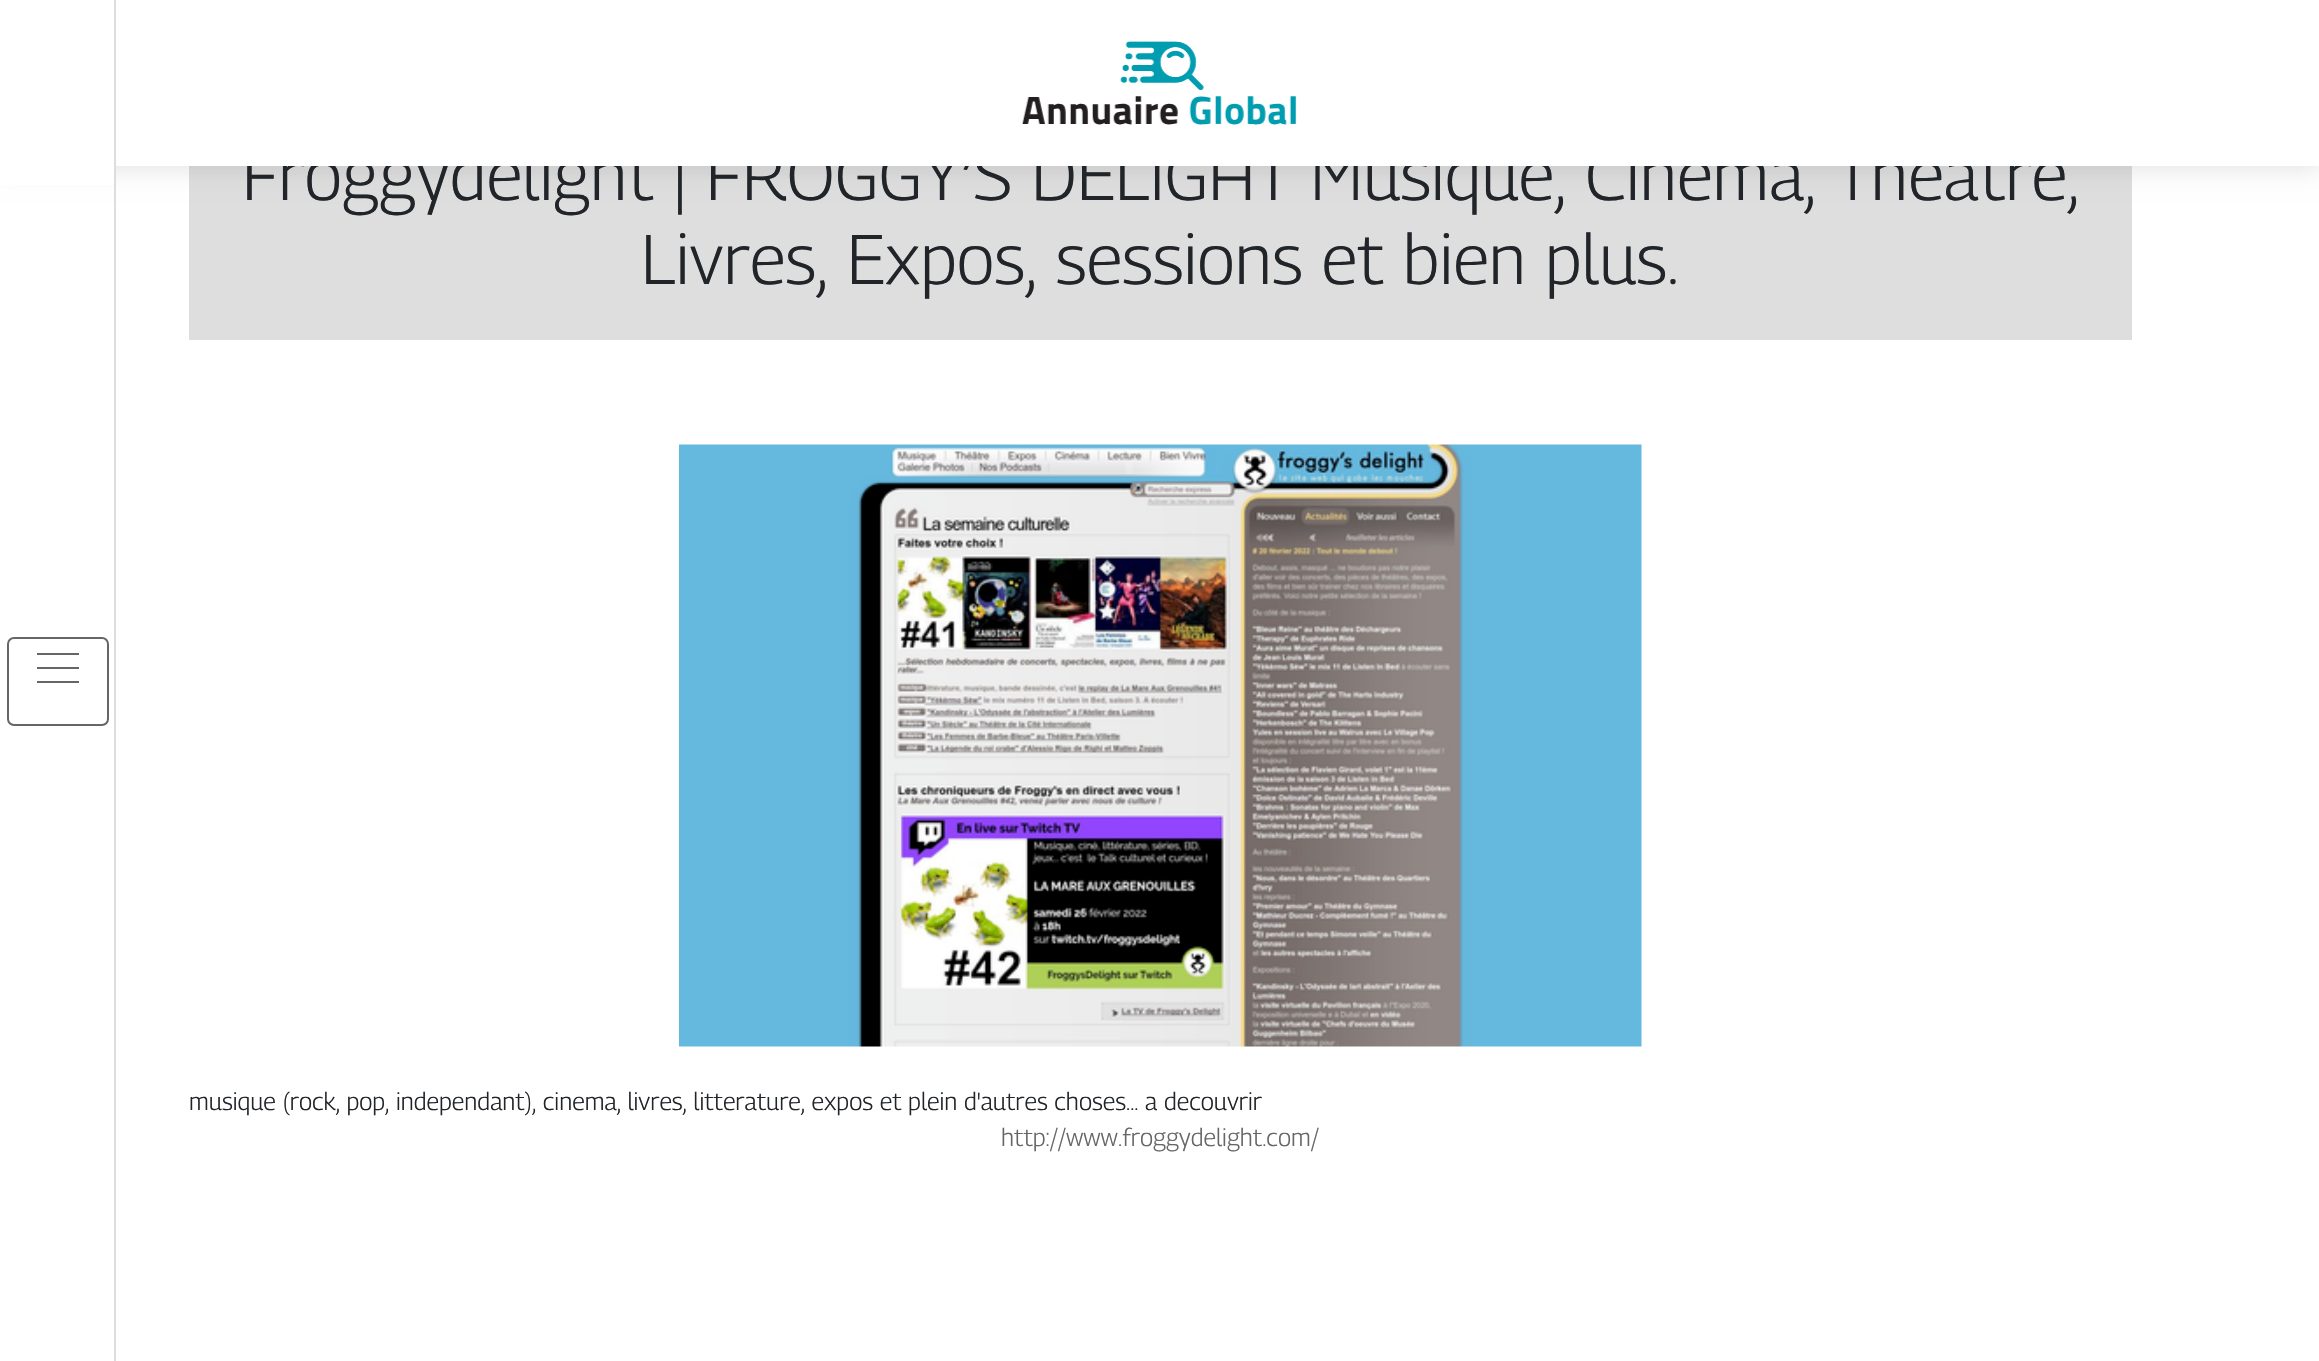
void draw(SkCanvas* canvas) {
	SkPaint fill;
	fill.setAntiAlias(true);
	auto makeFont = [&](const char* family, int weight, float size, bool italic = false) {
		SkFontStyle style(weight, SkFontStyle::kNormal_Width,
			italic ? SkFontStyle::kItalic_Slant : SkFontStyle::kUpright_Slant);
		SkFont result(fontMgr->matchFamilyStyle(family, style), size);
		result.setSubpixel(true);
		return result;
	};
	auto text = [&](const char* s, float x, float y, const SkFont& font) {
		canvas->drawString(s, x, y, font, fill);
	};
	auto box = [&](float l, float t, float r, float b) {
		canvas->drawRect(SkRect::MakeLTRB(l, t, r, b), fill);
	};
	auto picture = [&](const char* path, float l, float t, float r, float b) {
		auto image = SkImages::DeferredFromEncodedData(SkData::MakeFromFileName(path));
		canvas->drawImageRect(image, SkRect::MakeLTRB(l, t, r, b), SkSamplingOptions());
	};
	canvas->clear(0xFFFFFFFF);
	fill.setColor(0xFFDEDEDE);
	box(189, 166, 2132, 340);
	fill.setColor(0x1A000000);
	fill.setMaskFilter(SkMaskFilter::MakeBlur(kNormal_SkBlurStyle, 11.5f));
	canvas->drawRect(SkRect::MakeLTRB(0, 4, 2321, 170), fill);
	fill.setMaskFilter(nullptr);
	fill.setColor(0xFFFFFFFF);
	box(0, 0, 114, 185);
	fill.setColor(0xFFDDDDDD);
	box(114, 0, 116, 1361);
	fill.setStyle(SkPaint::kStroke_Style);
	fill.setStrokeWidth(2);
	fill.setColor(0xFF666666);
	canvas->drawRoundRect(SkRect::MakeLTRB(8, 638, 108, 725), 6, 6, fill);
	fill.setStyle(SkPaint::kFill_Style);
	box(37, 653, 79, 655);
	box(37, 667, 79, 669);
	box(37, 681, 79, 683);
	picture("image1.png", 679, 444, 1642, 1047);
	auto font1 = makeFont("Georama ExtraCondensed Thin", 100, 70);
	fill.setColor(0xFF212529);
	text("Froggydelight | FROGGY’S DELIGHT Musique, Cinema, Theatre,", 242, 200, font1);
	fill.setColor(0xFFFFFFFF);
	box(116, 0, 2319, 166);
	picture("image0.png", 1022, 41, 1297, 125);
	fill.setColor(0xFF212529);
	text("Livres, Expos, sessions et bien plus.", 641, 284, font1);
	auto font2 = makeFont("Georama ExtraCondensed Thin", 100, 24.5f);
	text("musique (rock, pop, independant), cinema, livres, litterature, expos et plein d'autres choses... a decouvrir", 189, 1110, font2);
	fill.setColor(0xFF666666);
	text("http://www.froggydelight.com/", 1001, 1146, font2);
}
